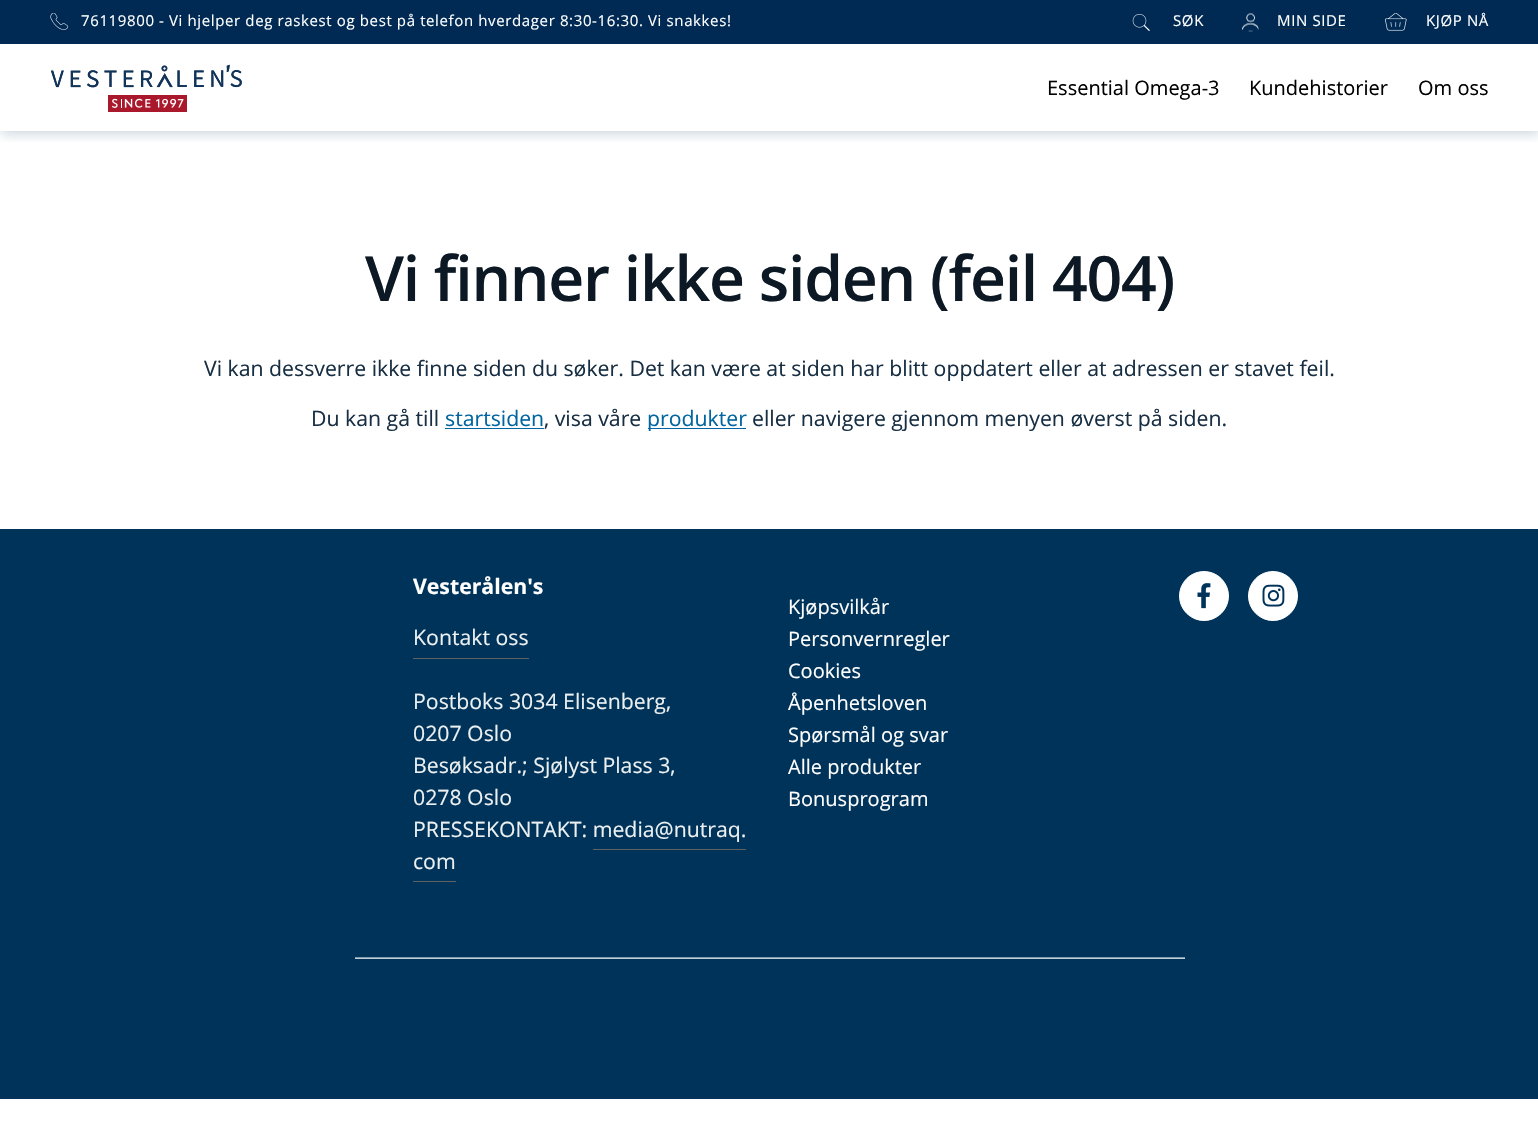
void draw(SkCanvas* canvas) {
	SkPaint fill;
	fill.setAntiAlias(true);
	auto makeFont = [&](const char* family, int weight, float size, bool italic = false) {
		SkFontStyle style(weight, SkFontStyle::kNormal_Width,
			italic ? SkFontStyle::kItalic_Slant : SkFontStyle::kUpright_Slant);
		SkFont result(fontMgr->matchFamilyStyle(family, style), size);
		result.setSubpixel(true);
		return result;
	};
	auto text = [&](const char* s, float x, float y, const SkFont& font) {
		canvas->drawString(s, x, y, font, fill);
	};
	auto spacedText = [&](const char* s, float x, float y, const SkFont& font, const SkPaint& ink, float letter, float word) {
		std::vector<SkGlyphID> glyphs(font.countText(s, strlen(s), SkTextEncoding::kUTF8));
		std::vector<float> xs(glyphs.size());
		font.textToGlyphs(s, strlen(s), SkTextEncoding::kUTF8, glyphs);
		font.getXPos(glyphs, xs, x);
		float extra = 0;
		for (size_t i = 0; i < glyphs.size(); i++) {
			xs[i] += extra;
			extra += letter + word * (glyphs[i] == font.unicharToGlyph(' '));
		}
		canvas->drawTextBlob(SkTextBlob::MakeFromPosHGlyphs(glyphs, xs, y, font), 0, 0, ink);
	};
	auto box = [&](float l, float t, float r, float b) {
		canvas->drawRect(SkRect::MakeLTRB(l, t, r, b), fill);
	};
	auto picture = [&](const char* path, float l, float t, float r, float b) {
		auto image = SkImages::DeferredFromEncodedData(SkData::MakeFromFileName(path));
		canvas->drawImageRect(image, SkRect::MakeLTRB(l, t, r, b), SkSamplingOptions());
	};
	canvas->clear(0xFFFFFFFF);
	canvas->save();
	canvas->clipRect(SkRect::MakeLTRB(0, 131, 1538, 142));
	fill.setColor(0x33003359);
	fill.setMaskFilter(SkMaskFilter::MakeBlur(kNormal_SkBlurStyle, 6));
	canvas->drawRect(SkRect::MakeLTRB(1, 46, 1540, 134), fill);
	fill.setMaskFilter(nullptr);
	canvas->restore();
	fill.setColor(0xFF002A54);
	box(0, 0, 1538, 44);
	picture("image0.png", 50, 13, 69, 30);
	picture("image1.png", 1132, 14, 1150, 31);
	picture("image2.png", 1242, 13, 1259, 32);
	fill.setColor(0xFF182F43);
	box(1278, 28, 1348, 29);
	picture("image3.png", 1385, 13, 1407, 31);
	picture("image4.png", 51, 64, 242, 112);
	fill.setColor(0xFF0065A0);
	box(445, 428, 544, 429);
	box(648, 428, 746, 429);
	fill.setColor(0xFF003359);
	box(0, 529, 1538, 1099);
	fill.setColor(0xFF616161);
	box(413, 658, 529, 659);
	box(593, 849, 746, 850);
	box(413, 881, 456, 882);
	fill.setColor(0xFFFFFFFF);
	canvas->drawCircle(1204, 596, 24.5f, fill);
	fill.setStyle(SkPaint::kStroke_Style);
	fill.setStrokeWidth(1);
	canvas->drawCircle(1204, 596, 24.5f, fill);
	picture("image5.png", 1197, 583, 1211, 609);
	fill.setStyle(SkPaint::kFill_Style);
	canvas->drawCircle(1273, 596, 24.5f, fill);
	fill.setStyle(SkPaint::kStroke_Style);
	canvas->drawCircle(1273, 596, 24.5f, fill);
	picture("image6.png", 1262, 584, 1285, 607);
	picture("image7.png", 355, 957, 1185, 959);
	auto font1 = makeFont("Open Sans", 400, 15);
	fill.setStyle(SkPaint::kFill_Style);
	spacedText("76119800 - Vi hjelper deg raskest og best på telefon hverdager 8:30-16:30. Vi snakkes!", 81, 26, font1, fill, 0.62f, 0);
	spacedText("SØK", 1173, 26, font1, fill, 0.62f, 0);
	spacedText("MIN SIDE", 1277, 26, font1, fill, 0.62f, 0);
	spacedText("KJØP NÅ", 1426, 26, font1, fill, 0.62f, 0);
	auto font2 = makeFont("Open Sans", 400, 20);
	fill.setColor(0xFF000000);
	text("Essential Omega-3", 1047, 95, font2);
	text("Kundehistorier", 1249, 95, font2);
	text("Om oss", 1418, 95, font2);
	auto font3 = makeFont("Open Sans", 600, 62.5f);
	fill.setColor(0xFF0C1924);
	spacedText("Vi finner ikke siden (feil 404)", 365, 301, font3, fill, -1.25f, 0);
	auto font4 = makeFont("Open Sans", 400, 21.25f);
	fill.setColor(0xFF182F43);
	text("Vi kan dessverre ikke finne siden du søker. Det kan være at siden har blitt oppdatert eller at adressen er stavet feil.", 204, 376, font4);
	text("Du kan gå till", 311, 426, font4);
	fill.setColor(0xFF0065A0);
	text("startsiden", 445, 426, font4);
	fill.setColor(0xFF182F43);
	text(", visa våre", 544, 426, font4);
	fill.setColor(0xFF0065A0);
	text("produkter", 647, 426, font4);
	fill.setColor(0xFF182F43);
	text("eller navigere gjennom menyen øverst på siden.", 752, 426, font4);
	auto font5 = makeFont("Open Sans", 700, 21.25f);
	fill.setColor(0xFFFFFFFF);
	text("Vesterålen's", 413, 594, font5);
	fill.setColor(0xFFECF0F1);
	text("Kontakt oss", 413, 645, font4);
	text("Postboks 3034 Elisenberg,", 413, 709, font4);
	text("0207 Oslo", 413, 741, font4);
	text("Besøksadr.; Sjølyst Plass 3,", 413, 773, font4);
	text("0278 Oslo", 413, 805, font4);
	text("PRESSEKONTAKT: media@nutraq.", 413, 837, font4);
	text("com", 413, 869, font4);
	fill.setColor(0xFFFFFFFF);
	text("Kjøpsvilkår", 788, 614, font2);
	text("Personvernregler", 788, 646, font2);
	text("Cookies", 788, 678, font2);
	text("Åpenhetsloven", 788, 710, font2);
	text("Spørsmål og svar", 788, 742, font2);
	text("Alle produkter", 788, 774, font2);
	text("Bonusprogram", 788, 806, font2);
}
